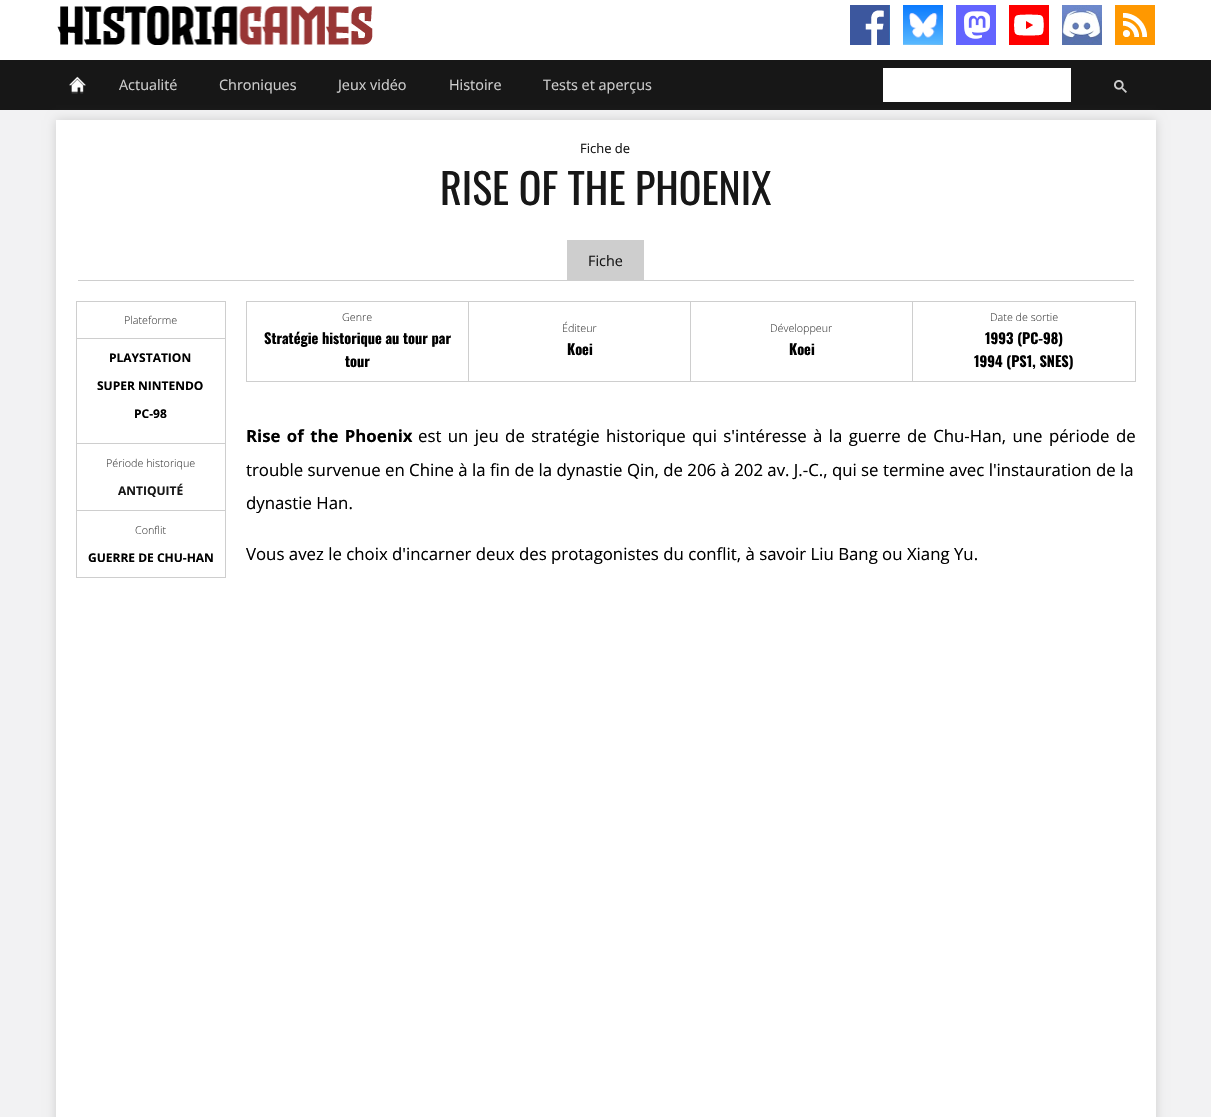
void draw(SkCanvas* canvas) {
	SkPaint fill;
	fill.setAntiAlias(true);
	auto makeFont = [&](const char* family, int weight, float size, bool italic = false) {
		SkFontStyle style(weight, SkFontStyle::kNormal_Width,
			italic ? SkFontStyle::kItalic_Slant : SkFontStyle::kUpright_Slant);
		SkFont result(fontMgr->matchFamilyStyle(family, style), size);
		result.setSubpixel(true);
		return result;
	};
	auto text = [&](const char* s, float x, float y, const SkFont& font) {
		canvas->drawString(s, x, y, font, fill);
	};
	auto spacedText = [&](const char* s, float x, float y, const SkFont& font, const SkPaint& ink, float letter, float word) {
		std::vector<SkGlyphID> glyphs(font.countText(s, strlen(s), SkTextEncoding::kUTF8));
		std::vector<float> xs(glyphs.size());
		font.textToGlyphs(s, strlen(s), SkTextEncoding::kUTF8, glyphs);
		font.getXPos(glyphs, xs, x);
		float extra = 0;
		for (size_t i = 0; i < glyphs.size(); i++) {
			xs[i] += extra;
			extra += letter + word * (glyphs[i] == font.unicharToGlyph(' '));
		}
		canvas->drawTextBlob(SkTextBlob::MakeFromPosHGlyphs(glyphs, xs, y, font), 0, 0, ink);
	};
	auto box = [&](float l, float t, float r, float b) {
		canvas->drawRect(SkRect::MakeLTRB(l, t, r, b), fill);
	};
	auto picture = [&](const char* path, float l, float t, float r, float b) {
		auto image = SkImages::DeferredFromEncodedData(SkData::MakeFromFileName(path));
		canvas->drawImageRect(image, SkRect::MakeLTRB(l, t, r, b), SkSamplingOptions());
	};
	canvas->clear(0xFFF2F2F3);
	fill.setColor(0xFFFFFFFF);
	box(0, 0, 1211, 60);
	picture("image0.png", 57, 6, 373, 45);
	picture("image1.png", 850, 5, 890, 45);
	picture("image2.png", 903, 5, 943, 45);
	picture("image3.png", 956, 5, 996, 45);
	picture("image4.png", 1009, 5, 1049, 45);
	picture("image5.png", 1062, 5, 1102, 45);
	picture("image6.png", 1115, 5, 1155, 45);
	fill.setColor(0xFF171717);
	box(0, 60, 1211, 110);
	picture("image7.png", 69, 76, 86, 94);
	fill.setColor(0xFFFFFFFF);
	box(883, 68, 1071, 102);
	picture("image8.png", 1114, 80, 1127, 93);
	fill.setColor(0xFFCECECE);
	fill.setMaskFilter(SkMaskFilter::MakeBlur(kNormal_SkBlurStyle, 5));
	canvas->drawRect(SkRect::MakeLTRB(56, 120, 1156, 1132), fill);
	fill.setMaskFilter(nullptr);
	fill.setColor(0xFFFFFFFF);
	box(56, 120, 1156, 1117);
	fill.setColor(0xFFCECECE);
	box(78, 280, 1134, 281);
	box(567, 240, 644, 280);
	box(76, 301, 226, 302);
	box(76, 338, 226, 339);
	box(76, 443, 226, 444);
	box(76, 510, 226, 511);
	box(225, 510, 226, 578);
	box(225, 443, 226, 511);
	box(225, 338, 226, 444);
	box(225, 301, 226, 339);
	box(76, 577, 226, 578);
	box(76, 510, 77, 578);
	box(76, 443, 77, 511);
	box(76, 338, 77, 444);
	box(76, 301, 77, 339);
	box(912, 301, 1136, 302);
	box(1135, 301, 1136, 382);
	box(912, 381, 1136, 382);
	box(912, 301, 913, 382);
	box(690, 301, 913, 302);
	box(690, 381, 913, 382);
	box(690, 301, 691, 382);
	box(468, 301, 691, 302);
	box(468, 381, 691, 382);
	box(468, 301, 469, 382);
	box(246, 301, 469, 302);
	box(246, 381, 469, 382);
	box(246, 301, 247, 382);
	auto font1 = makeFont("Open Sans", 400, 14.4f);
	text("Actualité", 119, 90, font1);
	text("Chroniques", 219, 90, font1);
	text("Jeux vidéo", 338, 90, font1);
	text("Histoire", 449, 90, font1);
	text("Tests et aperçus", 543, 90, font1);
	auto font2 = makeFont("Open Sans", 400, 13);
	fill.setColor(0xFF171717);
	text("Fiche de", 580, 153, font2);
	auto font3 = makeFont("Oswald", 400, 42);
	text("RISE OF THE PHOENIX", 440, 205, font3);
	text("Fiche", 588, 266, font1);
	auto font4 = makeFont("Open Sans", 300, 10.75f);
	fill.setColor(0xFF444444);
	text("Plateforme", 124, 324, font4);
	auto font5 = makeFont("Open Sans", 700, 12);
	fill.setColor(0xFF000000);
	text("PLAYSTATION", 109, 362, font5);
	text("SUPER NINTENDO", 97, 390, font5);
	text("PC-98", 134, 418, font5);
	fill.setColor(0xFF444444);
	text("Période historique", 106, 467, font4);
	fill.setColor(0xFF171717);
	text("ANTIQUITÉ", 118, 495, font5);
	fill.setColor(0xFF444444);
	text("Conflit", 135, 534, font4);
	fill.setColor(0xFF000000);
	text("GUERRE DE CHU-HAN", 88, 562, font5);
	fill.setColor(0xFF444444);
	text("Genre", 342, 321, font4);
	auto font6 = makeFont("Oswald", 700, 14.4f);
	fill.setColor(0xFF000000);
	text("Stratégie historique au tour par", 264, 344, font6);
	text("tour", 345, 367, font6);
	fill.setColor(0xFF444444);
	text("Éditeur", 562, 332, font4);
	fill.setColor(0xFF000000);
	text("Koei", 567, 355, font6);
	fill.setColor(0xFF444444);
	text("Développeur", 770, 332, font4);
	fill.setColor(0xFF000000);
	text("Koei", 789, 355, font6);
	fill.setColor(0xFF444444);
	text("Date de sortie", 990, 321, font4);
	fill.setColor(0xFF000000);
	text("1993 (PC-98)", 985, 344, font6);
	text("1994 (PS1, SNES)", 974, 367, font6);
	auto font7 = makeFont("Open Sans", 700, 16.8f);
	spacedText("Rise of the Phoenix", 246, 442, font7, fill, 0, 2);
	auto font8 = makeFont("Open Sans", 400, 16.8f);
	spacedText("est un jeu de stratégie historique qui s'intéresse à la guerre de Chu-Han, une période de", 418, 442, font8, fill, 0, 2);
	text("trouble survenue en Chine à la fin de la dynastie Qin, de 206 à 202 av. J.-C., qui se termine avec l'instauration de la", 246, 476, font8);
	text("dynastie Han.", 246, 509, font8);
	text("Vous avez le choix d'incarner deux des protagonistes du conflit, à savoir Liu Bang ou Xiang Yu.", 246, 560, font8);
}
